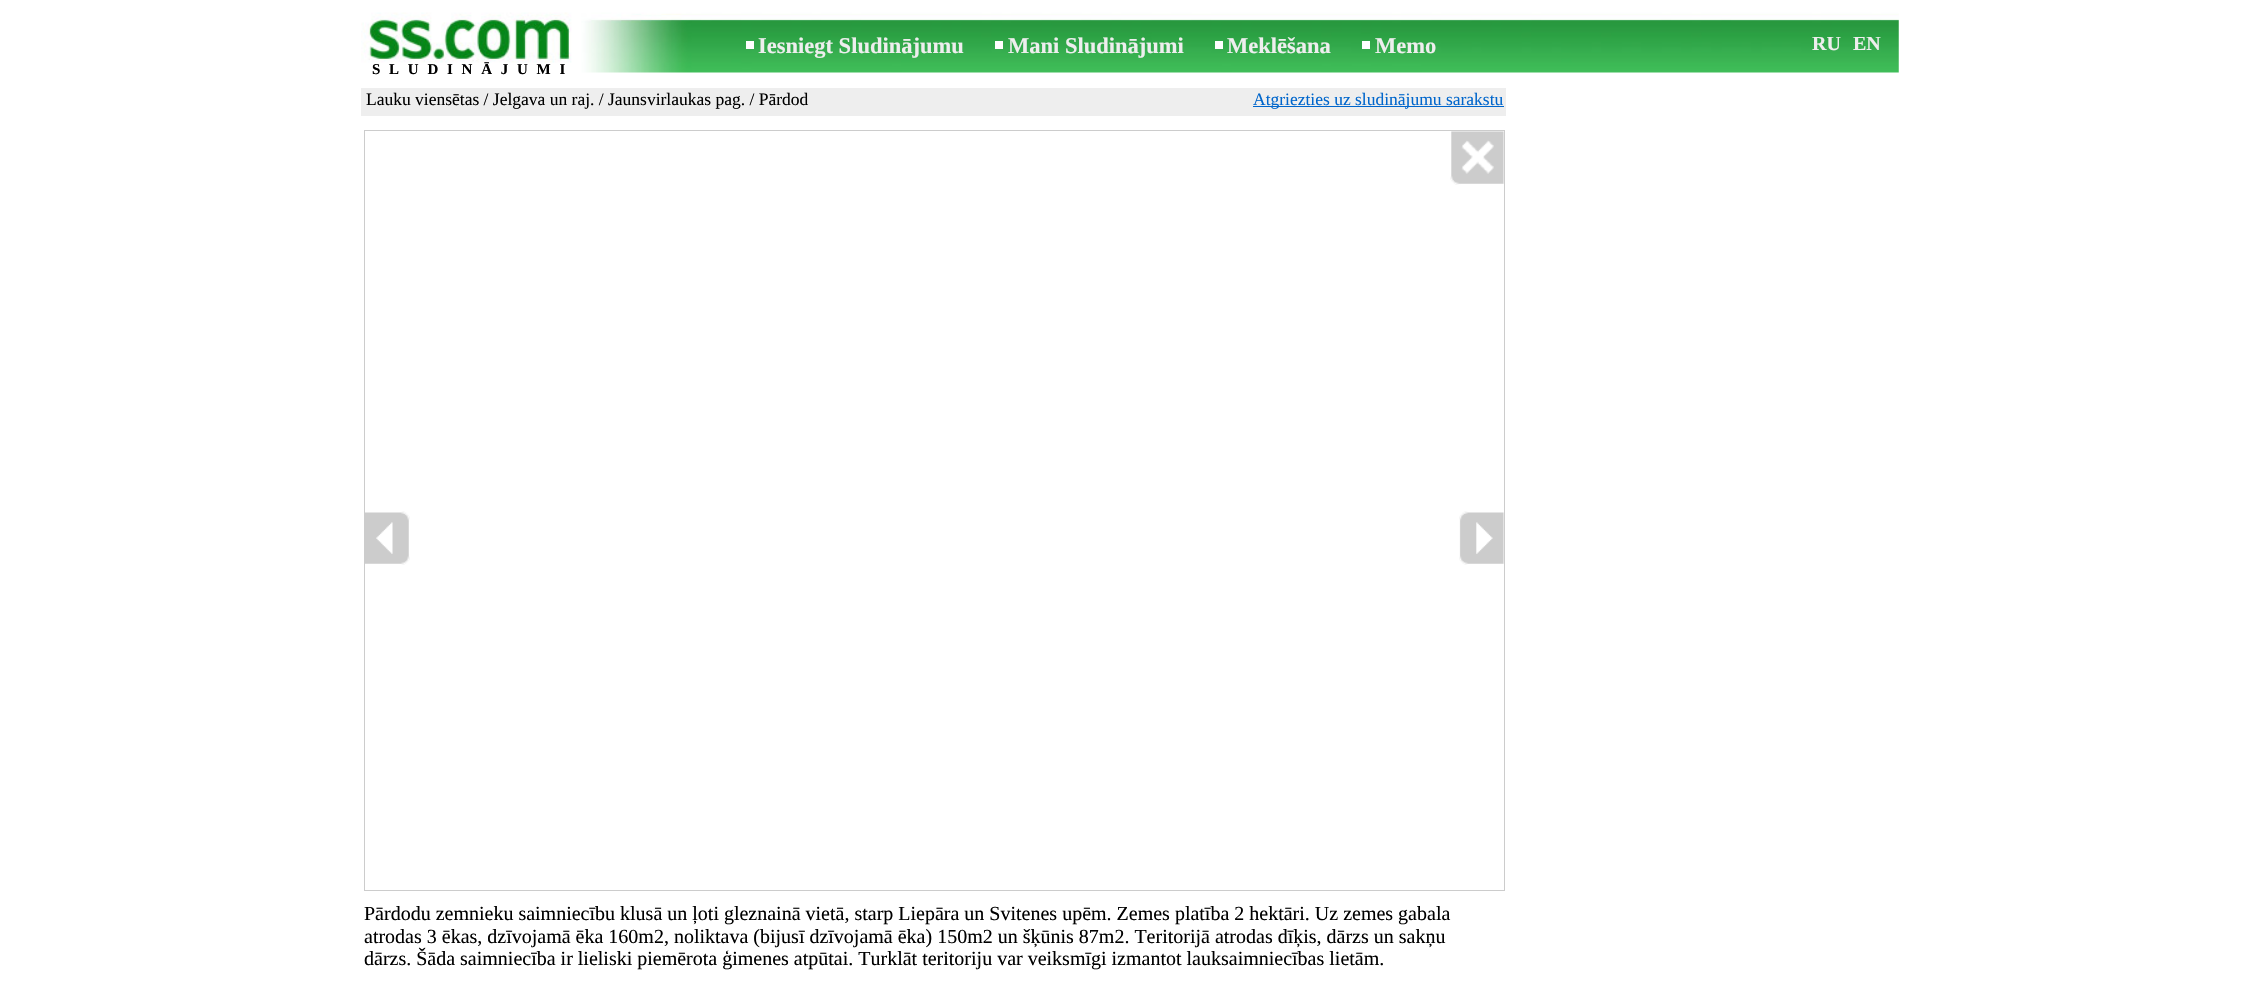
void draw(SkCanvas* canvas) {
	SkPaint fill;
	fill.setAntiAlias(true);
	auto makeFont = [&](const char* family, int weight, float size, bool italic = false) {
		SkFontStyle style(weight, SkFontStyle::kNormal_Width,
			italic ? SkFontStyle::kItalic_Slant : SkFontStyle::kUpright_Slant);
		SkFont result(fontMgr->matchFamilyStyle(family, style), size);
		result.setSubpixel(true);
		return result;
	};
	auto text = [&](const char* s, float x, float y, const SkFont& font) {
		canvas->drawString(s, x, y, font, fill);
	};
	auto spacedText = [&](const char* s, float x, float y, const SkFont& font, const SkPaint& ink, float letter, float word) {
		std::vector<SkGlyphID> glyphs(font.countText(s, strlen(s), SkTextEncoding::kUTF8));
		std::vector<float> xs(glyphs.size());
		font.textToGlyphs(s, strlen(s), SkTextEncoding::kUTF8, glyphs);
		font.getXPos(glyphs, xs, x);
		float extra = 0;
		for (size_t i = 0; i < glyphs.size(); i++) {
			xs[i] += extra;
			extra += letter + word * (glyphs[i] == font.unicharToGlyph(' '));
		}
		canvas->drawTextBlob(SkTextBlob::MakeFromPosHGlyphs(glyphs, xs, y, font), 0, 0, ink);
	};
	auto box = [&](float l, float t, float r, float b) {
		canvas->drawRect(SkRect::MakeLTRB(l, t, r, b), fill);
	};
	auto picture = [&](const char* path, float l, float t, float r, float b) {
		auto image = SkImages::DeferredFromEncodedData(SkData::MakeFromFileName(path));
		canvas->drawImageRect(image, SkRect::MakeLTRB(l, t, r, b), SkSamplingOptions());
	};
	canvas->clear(0xFFFFFFFF);
	picture("image0.png", 361, 12, 1899, 73);
	fill.setColor(0xFFFFFFFF);
	box(746, 41, 754, 49);
	box(995, 41, 1003, 49);
	box(1215, 41, 1223, 49);
	box(1362, 41, 1370, 49);
	fill.setColor(0xFFEEEEEE);
	box(361, 88, 1506, 116);
	fill.setColor(0xFF0066CC);
	box(1253, 106, 1504, 107);
	fill.setStyle(SkPaint::kStroke_Style);
	fill.setStrokeWidth(1);
	fill.setColor(0xFFCCCCCC);
	canvas->drawRect(SkRect::MakeLTRB(364.5f, 130.5f, 1504.5f, 890.5f), fill);
	picture("image1.png", 1450, 131, 1504, 185);
	picture("image2.png", 365, 511, 410, 565);
	picture("image3.png", 1459, 511, 1504, 565);
	auto font1 = makeFont("Liberation Serif", 700, 22.5f);
	fill.setStyle(SkPaint::kFill_Style);
	fill.setColor(0xFFEEEEEE);
	text("Iesniegt Sludinājumu", 758, 53, font1);
	text("Mani Sludinājumi", 1008, 53, font1);
	text("Meklēšana", 1227, 53, font1);
	text("Memo", 1375, 53, font1);
	auto font2 = makeFont("Liberation Serif", 700, 20);
	text("RU", 1812, 50, font2);
	text("EN", 1853, 50, font2);
	auto font3 = makeFont("Liberation Serif", 700, 15);
	fill.setColor(0xFF000000);
	spacedText("SLUDINĀJUMI", 372, 74, font3, fill, 8.75f, 0);
	auto font4 = makeFont("Liberation Serif", 400, 17.5f);
	text("Lauku viensētas / Jelgava un raj. / Jaunsvirlaukas pag. / Pārdod", 366, 105, font4);
	fill.setColor(0xFF0066CC);
	text("Atgriezties uz sludinājumu sarakstu", 1253, 105, font4);
	auto font5 = makeFont("Liberation Serif", 400, 20);
	fill.setColor(0xFF000000);
	text("Pārdodu zemnieku saimniecību klusā un ļoti gleznainā vietā, starp Liepāra un Svitenes upēm. Zemes platība 2 hektāri. Uz zemes gabala", 364, 920, font5);
	text("atrodas 3 ēkas, dzīvojamā ēka 160m2, noliktava (bijusī dzīvojamā ēka) 150m2 un šķūnis 87m2. Teritorijā atrodas dīķis, dārzs un sakņu", 364, 943, font5);
	text("dārzs. Šāda saimniecība ir lieliski piemērota ģimenes atpūtai. Turklāt teritoriju var veiksmīgi izmantot lauksaimniecības lietām.", 364, 965, font5);
}
